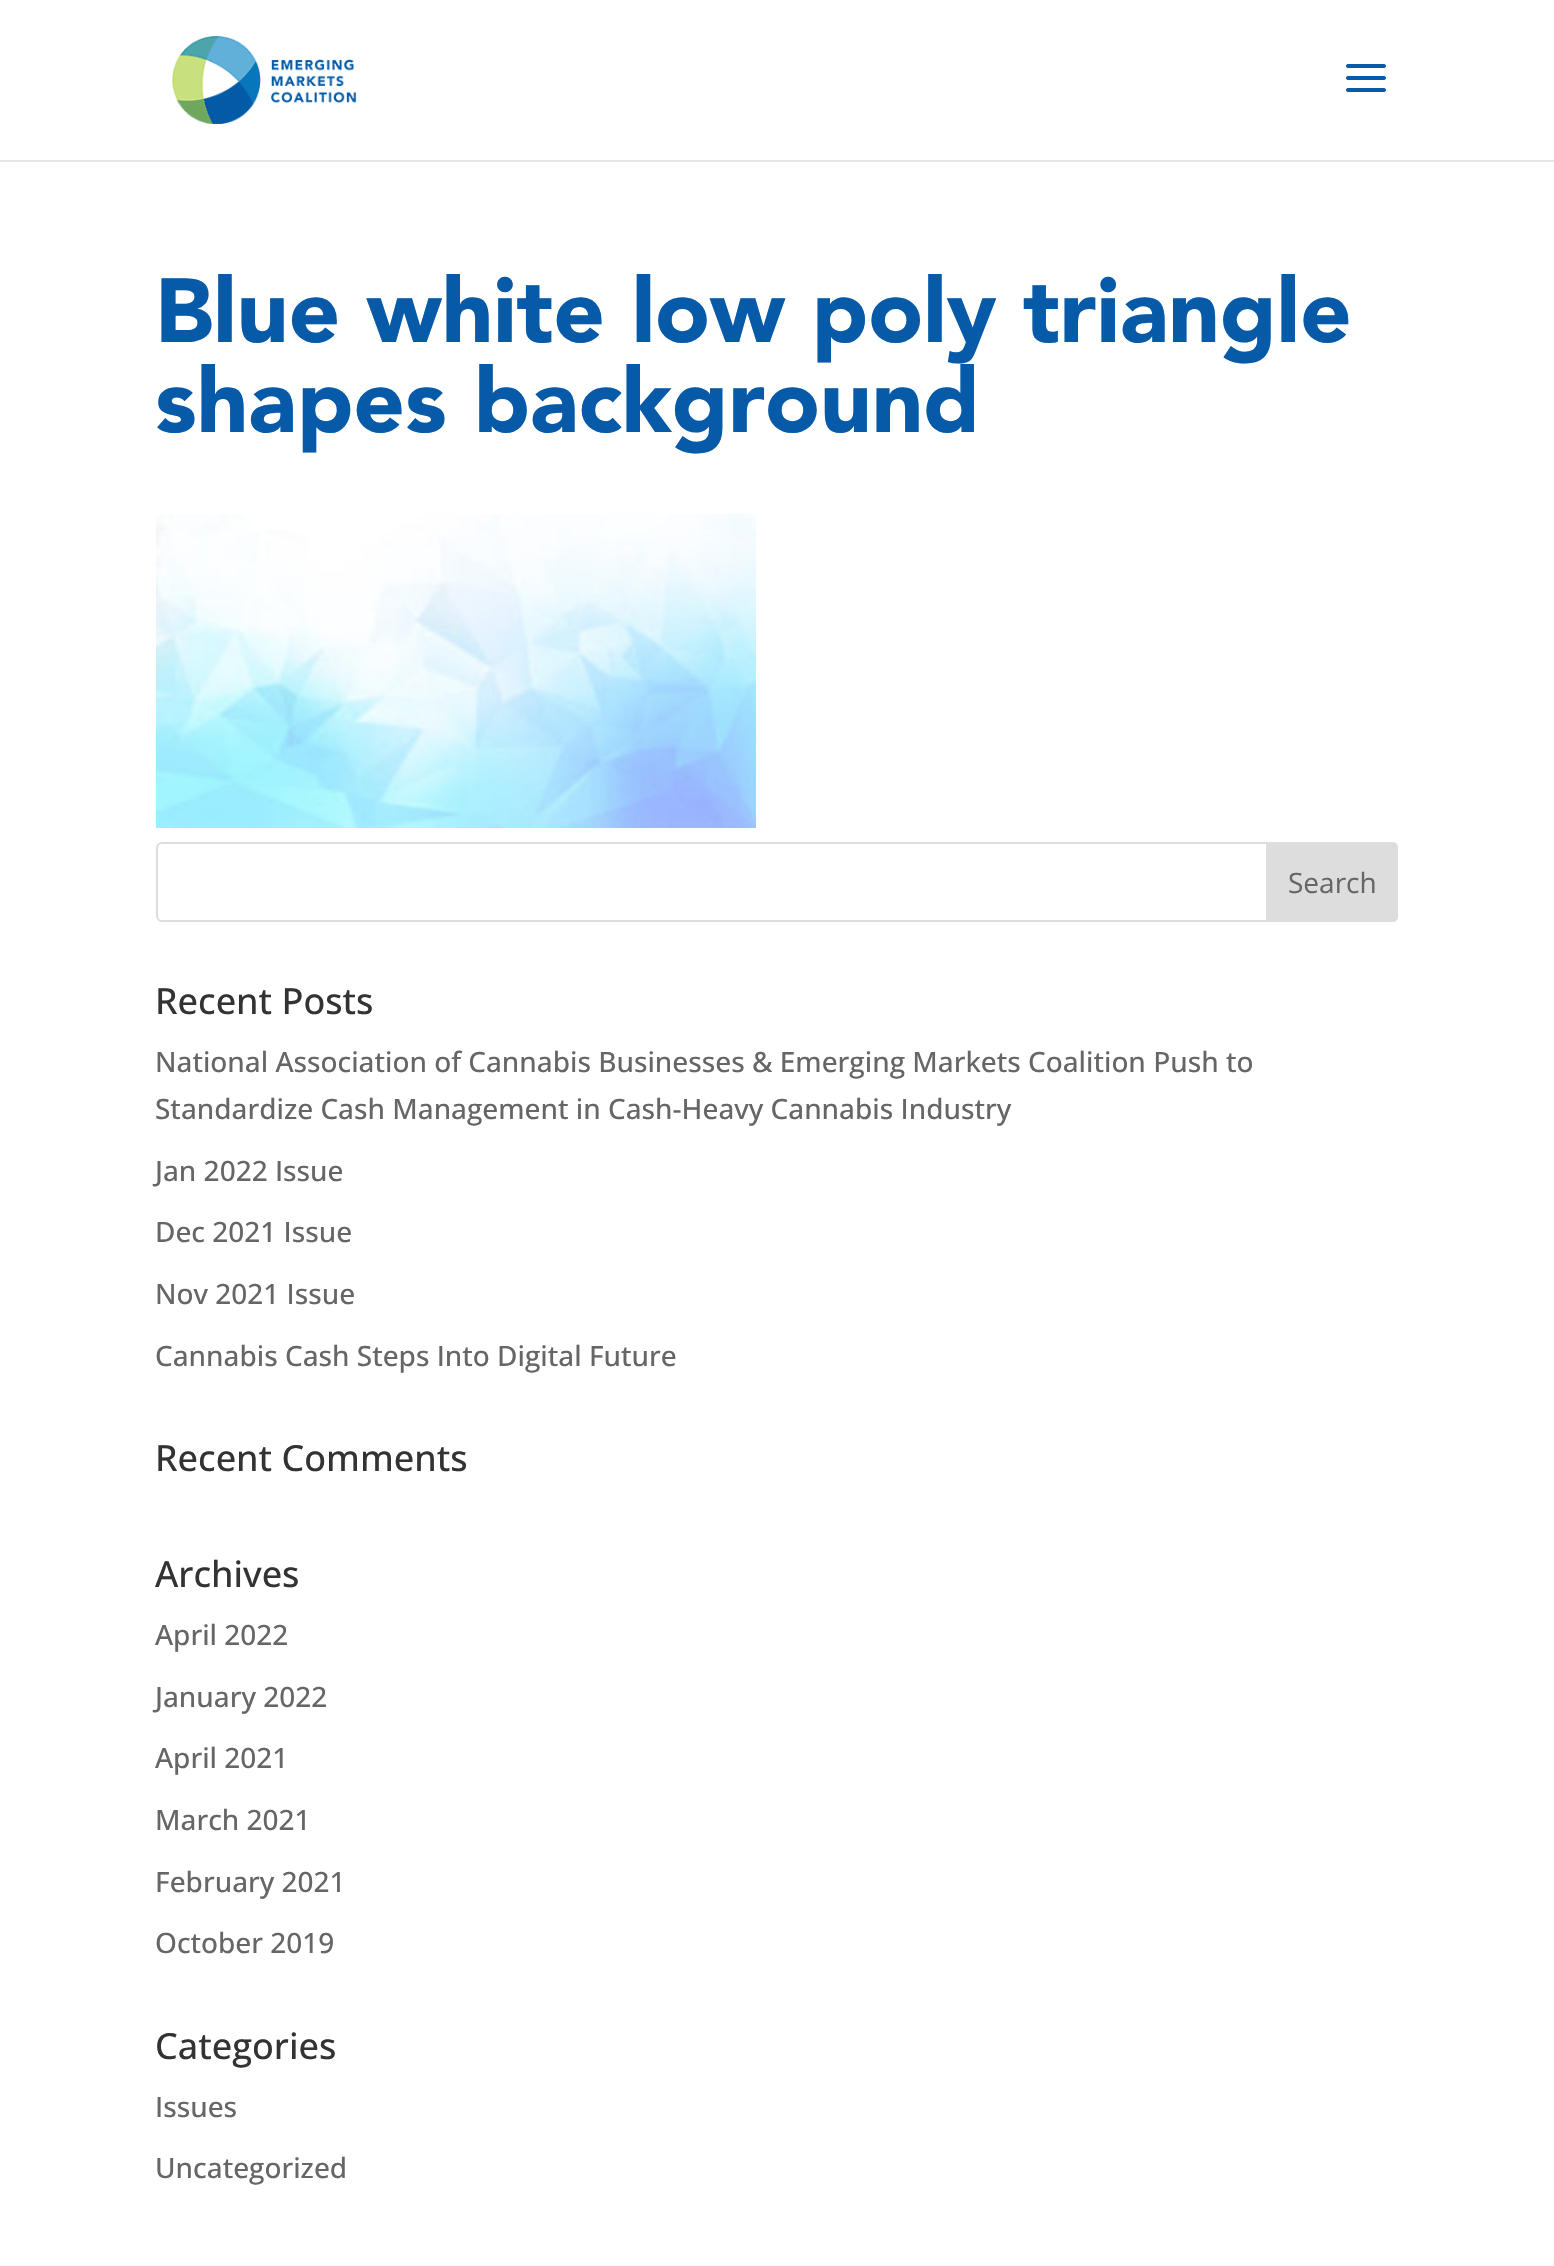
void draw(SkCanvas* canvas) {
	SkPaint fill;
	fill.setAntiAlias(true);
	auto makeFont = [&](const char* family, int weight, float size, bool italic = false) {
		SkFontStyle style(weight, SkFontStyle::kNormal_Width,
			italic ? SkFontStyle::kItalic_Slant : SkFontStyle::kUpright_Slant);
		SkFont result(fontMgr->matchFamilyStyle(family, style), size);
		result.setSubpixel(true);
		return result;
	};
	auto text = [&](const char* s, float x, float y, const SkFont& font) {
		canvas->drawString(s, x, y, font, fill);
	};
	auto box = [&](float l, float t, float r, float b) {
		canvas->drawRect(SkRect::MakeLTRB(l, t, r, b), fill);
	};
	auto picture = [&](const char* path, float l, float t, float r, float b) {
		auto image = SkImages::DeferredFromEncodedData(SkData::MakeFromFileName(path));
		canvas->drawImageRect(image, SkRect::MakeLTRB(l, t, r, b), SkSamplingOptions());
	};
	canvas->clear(0xFFFFFFFF);
	fill.setColor(0xFFE6E6E6);
	box(0, 160, 1554, 162);
	picture("image0.png", 172, 36, 357, 124);
	picture("image1.png", 1346, 64, 1386, 92);
	picture("image2.png", 156, 514, 756, 828);
	fill.setStyle(SkPaint::kStroke_Style);
	fill.setStrokeWidth(2);
	fill.setColor(0xFFDDDDDD);
	canvas->drawRoundRect(SkRect::MakeLTRB(157, 843, 1397, 921), 5, 5, fill);
	fill.setStyle(SkPaint::kFill_Style);
	canvas->drawPath(SkPathBuilder().moveTo(1267, 843).lineTo(1392, 843).cubicTo(1395, 843, 1397, 845, 1397, 848).lineTo(1397, 916).cubicTo(1397, 919, 1395, 921, 1392, 921).lineTo(1267, 921).close().detach(), fill);
	fill.setStyle(SkPaint::kStroke_Style);
	canvas->drawPath(SkPathBuilder().moveTo(1267, 843).lineTo(1392, 843).cubicTo(1395, 843, 1397, 845, 1397, 848).lineTo(1397, 916).cubicTo(1397, 919, 1395, 921, 1392, 921).lineTo(1267, 921).close().detach(), fill);
	auto font1 = makeFont("Avenir", 900, 90);
	fill.setStyle(SkPaint::kFill_Style);
	fill.setColor(0xFF065AA7);
	text("Blue white low poly triangle", 155, 342, font1);
	text("shapes background", 155, 432, font1);
	auto font2 = makeFont("Open Sans", 400, 28);
	fill.setColor(0xFF666666);
	text("Search", 1288, 893, font2);
	auto font3 = makeFont("Open Sans", 500, 36);
	fill.setColor(0xFF333333);
	text("Recent Posts", 155, 1014, font3);
	auto font4 = makeFont("Open Sans", 500, 28);
	fill.setColor(0xFF666666);
	text("National Association of Cannabis Businesses & Emerging Markets Coalition Push to", 155, 1072, font4);
	text("Standardize Cash Management in Cash-Heavy Cannabis Industry", 155, 1119, font4);
	text("Jan 2022 Issue", 155, 1181, font4);
	text("Dec 2021 Issue", 155, 1242, font4);
	text("Nov 2021 Issue", 155, 1304, font4);
	text("Cannabis Cash Steps Into Digital Future", 155, 1366, font4);
	fill.setColor(0xFF333333);
	text("Recent Comments", 155, 1471, font3);
	text("Archives", 155, 1587, font3);
	fill.setColor(0xFF666666);
	text("April 2022", 155, 1645, font4);
	text("January 2022", 155, 1707, font4);
	text("April 2021", 155, 1768, font4);
	text("March 2021", 155, 1830, font4);
	text("February 2021", 155, 1892, font4);
	text("October 2019", 155, 1953, font4);
	fill.setColor(0xFF333333);
	text("Categories", 155, 2059, font3);
	fill.setColor(0xFF666666);
	text("Issues", 155, 2117, font4);
	text("Uncategorized", 155, 2178, font4);
}
